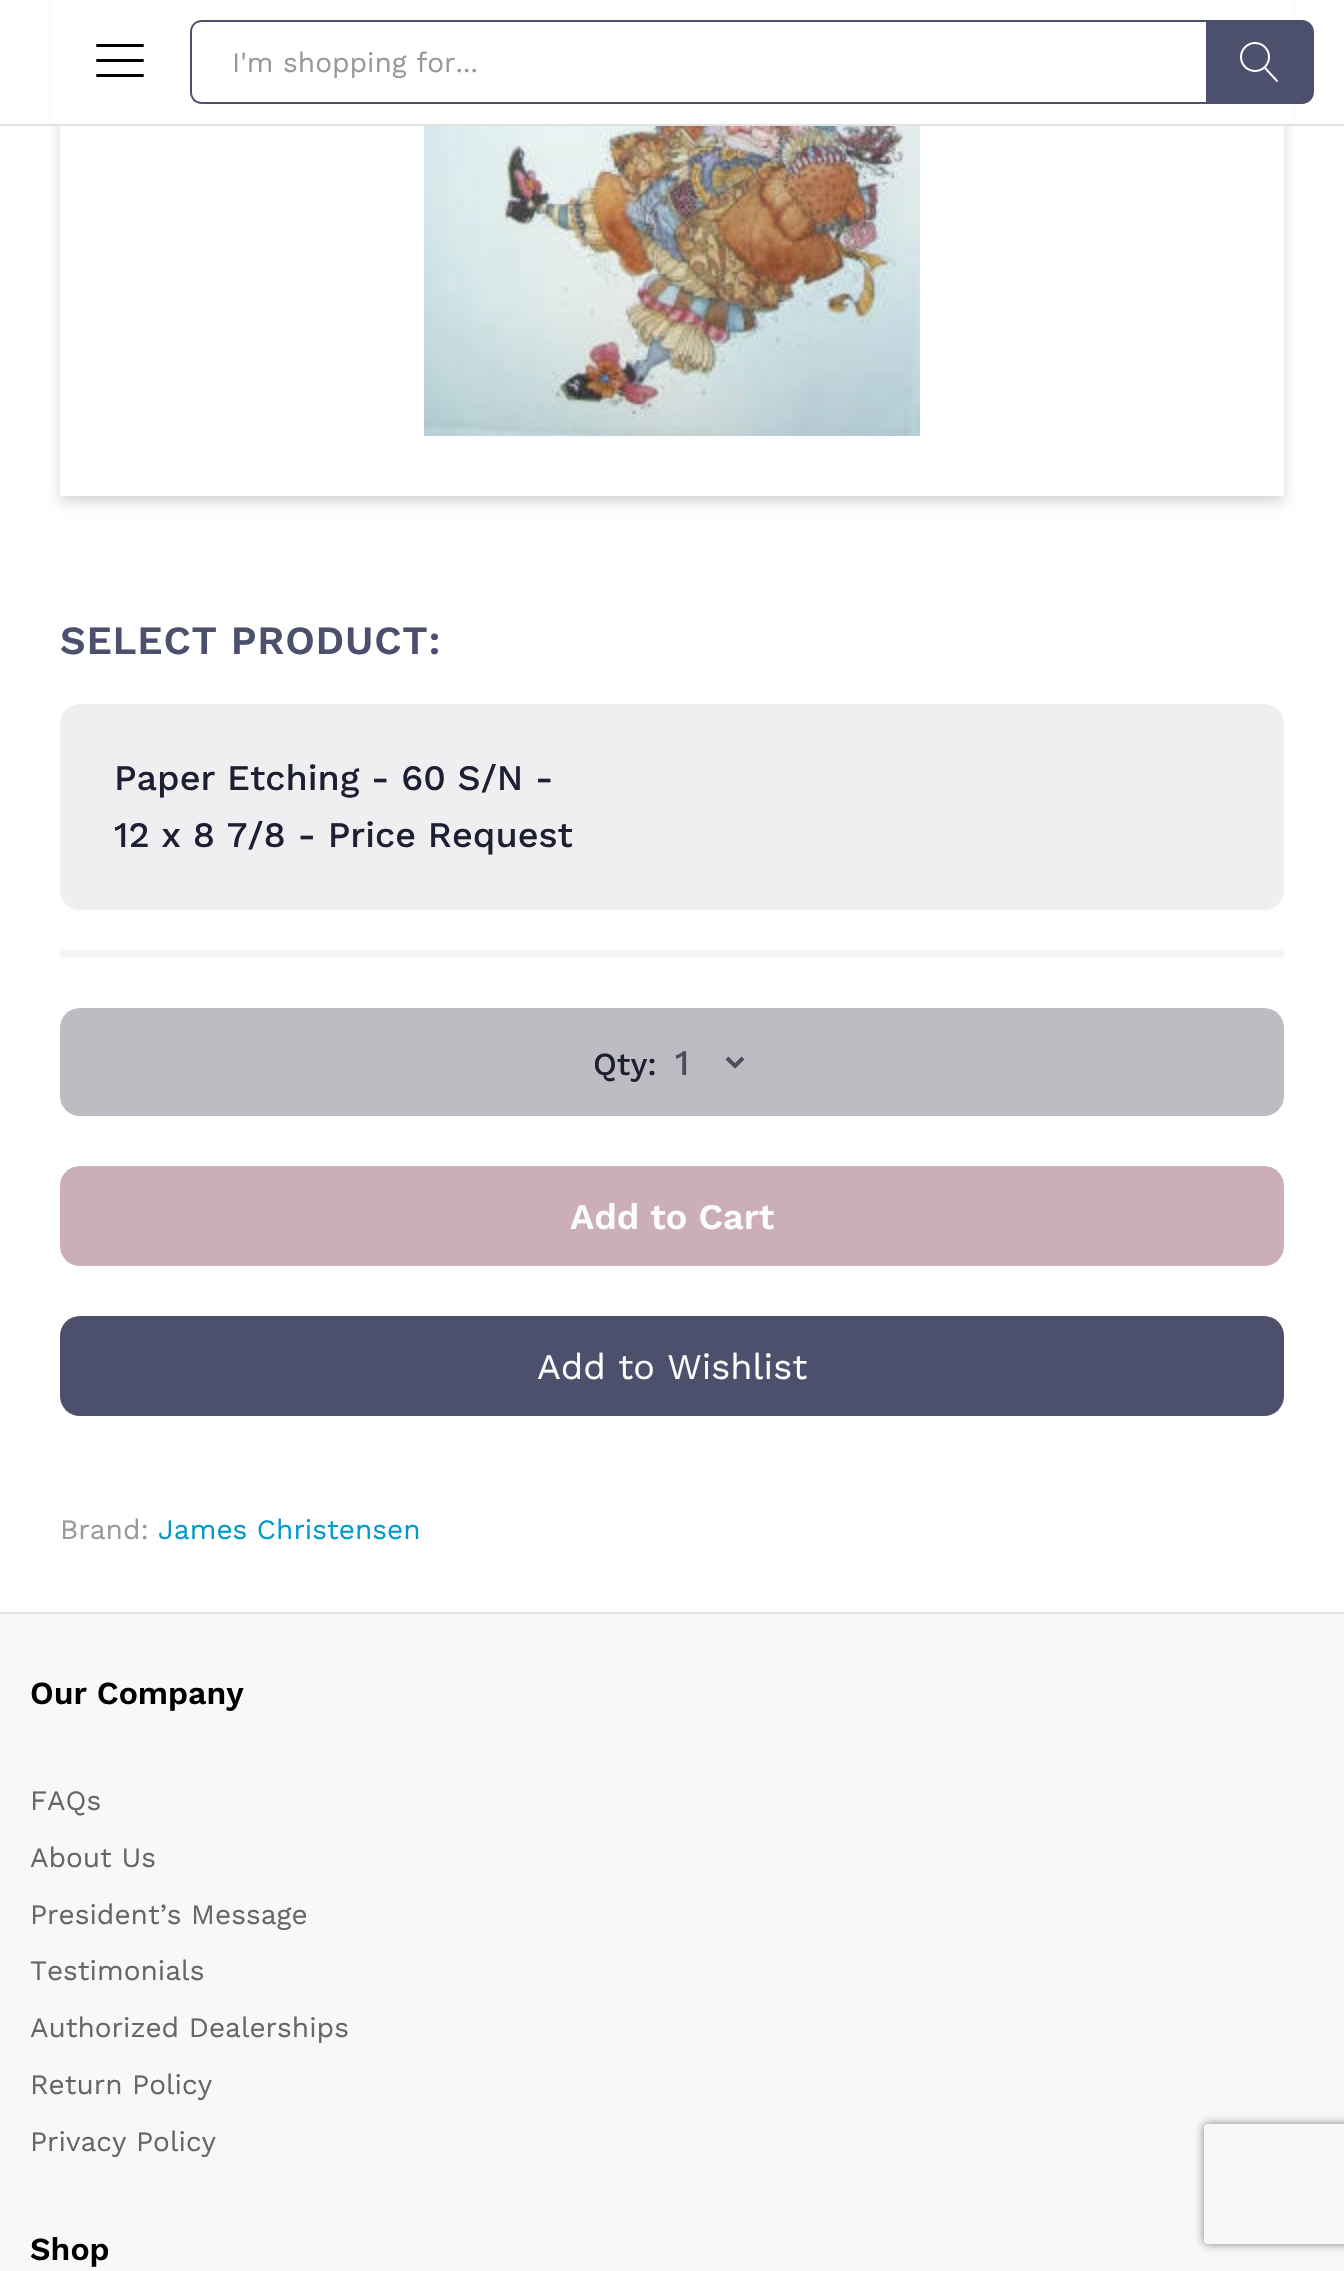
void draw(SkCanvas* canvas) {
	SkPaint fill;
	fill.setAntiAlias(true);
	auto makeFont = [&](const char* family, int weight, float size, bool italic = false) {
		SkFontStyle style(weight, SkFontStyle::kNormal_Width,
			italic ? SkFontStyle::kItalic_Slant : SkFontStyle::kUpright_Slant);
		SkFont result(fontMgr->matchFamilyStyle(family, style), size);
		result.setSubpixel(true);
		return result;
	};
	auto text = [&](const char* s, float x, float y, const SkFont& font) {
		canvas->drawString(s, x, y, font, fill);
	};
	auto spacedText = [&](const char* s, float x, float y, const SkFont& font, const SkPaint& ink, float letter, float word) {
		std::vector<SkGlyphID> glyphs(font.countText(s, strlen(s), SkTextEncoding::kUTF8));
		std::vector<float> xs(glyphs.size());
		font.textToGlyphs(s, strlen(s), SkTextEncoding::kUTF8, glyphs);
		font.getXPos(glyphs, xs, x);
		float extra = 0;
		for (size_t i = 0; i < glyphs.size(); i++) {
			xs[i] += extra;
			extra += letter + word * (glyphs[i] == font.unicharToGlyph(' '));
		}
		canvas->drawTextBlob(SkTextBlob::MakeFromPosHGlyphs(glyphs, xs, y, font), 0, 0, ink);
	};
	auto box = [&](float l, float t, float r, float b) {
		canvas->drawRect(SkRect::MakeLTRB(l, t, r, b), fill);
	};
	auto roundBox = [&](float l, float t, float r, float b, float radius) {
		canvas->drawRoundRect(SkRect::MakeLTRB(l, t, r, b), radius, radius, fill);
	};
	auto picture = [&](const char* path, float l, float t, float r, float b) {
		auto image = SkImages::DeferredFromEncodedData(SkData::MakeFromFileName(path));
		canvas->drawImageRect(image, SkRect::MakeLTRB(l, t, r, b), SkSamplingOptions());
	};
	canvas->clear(0xFFFFFFFF);
	canvas->save();
	canvas->clipPath(SkPathBuilder(SkPathFillType::kEvenOdd).moveTo(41, 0).lineTo(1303, 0).lineTo(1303, 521).lineTo(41, 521).close().moveTo(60, -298).lineTo(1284, -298).lineTo(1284, 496).lineTo(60, 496).close().detach(), true);
	fill.setColor(0x29000000);
	fill.setMaskFilter(SkMaskFilter::MakeBlur(kNormal_SkBlurStyle, 6));
	canvas->drawRect(SkRect::MakeLTRB(60, -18, 1284, 502), fill);
	fill.setMaskFilter(nullptr);
	canvas->restore();
	fill.setColor(0xFFFFFFFF);
	box(51, 0, 1293, 124);
	fill.setColor(0xFFE1E1E1);
	box(0, 124, 1344, 126);
	picture("image0.png", 96, 44, 144, 77);
	fill.setColor(0xFF4C506C);
	canvas->drawPath(SkPathBuilder(SkPathFillType::kEvenOdd).moveTo(202, 20).lineTo(1206, 20).lineTo(1206, 104).lineTo(202, 104).cubicTo(195, 104, 190, 99, 190, 92).lineTo(190, 32).cubicTo(190, 25, 195, 20, 202, 20).close().moveTo(202, 22).lineTo(1206, 22).lineTo(1206, 102).lineTo(202, 102).cubicTo(196, 102, 192, 98, 192, 92).lineTo(192, 32).cubicTo(192, 26, 196, 22, 202, 22).close().detach(), fill);
	canvas->drawPath(SkPathBuilder().moveTo(1206, 20).lineTo(1302, 20).cubicTo(1308.5f, 20, 1314, 25.5f, 1314, 32).lineTo(1314, 92).cubicTo(1314, 98.5f, 1308.5f, 104, 1302, 104).lineTo(1206, 104).close().detach(), fill);
	picture("image1.png", 1240, 42, 1278, 82);
	picture("image2.png", 424, 126, 920, 436);
	fill.setColor(0xFFF7F5F5);
	box(60, 950, 1284, 958);
	fill.setColor(0xFFEFEFF1);
	roundBox(60, 704, 1284, 910, 20);
	fill.setColor(0xFFBCBCC2);
	roundBox(60, 1008, 1284, 1116, 20);
	fill.setStyle(SkPaint::kStroke_Style);
	fill.setStrokeWidth(4);
	fill.setColor(0xFF4D4E5D);
	canvas->drawPath(SkPathBuilder().moveTo(727, 1058).lineTo(735, 1066).lineTo(743, 1058).detach(), fill);
	fill.setStyle(SkPaint::kFill_Style);
	fill.setColor(0xFFCCAEB7);
	roundBox(60, 1166, 1284, 1266, 20);
	fill.setColor(0xFF4C506C);
	roundBox(60, 1316, 1284, 1416, 20);
	fill.setColor(0xFFE1E1E1);
	box(0, 1612, 1344, 1614);
	fill.setColor(0xFFF8F8F8);
	box(0, 1614, 1344, 2271);
	canvas->save();
	canvas->clipPath(SkPathBuilder(SkPathFillType::kEvenOdd).moveTo(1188, 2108).lineTo(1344, 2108).lineTo(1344, 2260).lineTo(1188, 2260).close().moveTo(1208, 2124).lineTo(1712, 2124).cubicTo(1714, 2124, 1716, 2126, 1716, 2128).lineTo(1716, 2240).cubicTo(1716, 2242, 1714, 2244, 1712, 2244).lineTo(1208, 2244).cubicTo(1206, 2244, 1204, 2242, 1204, 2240).lineTo(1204, 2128).cubicTo(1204, 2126, 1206, 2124, 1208, 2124).close().detach(), true);
	fill.setColor(0xFF808080);
	fill.setMaskFilter(SkMaskFilter::MakeBlur(kNormal_SkBlurStyle, 5));
	canvas->drawRoundRect(SkRect::MakeLTRB(1204, 2124, 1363, 2244), 4, 4, fill);
	fill.setMaskFilter(nullptr);
	canvas->restore();
	auto font1 = makeFont("Work Sans", 400, 28);
	fill.setColor(0xFF999999);
	text("I'm shopping for...", 232, 72, font1);
	auto font2 = makeFont("Work Sans", 600, 40);
	fill.setColor(0xFF4C506C);
	spacedText("SELECT PRODUCT:", 60, 654, font2, fill, 0.75f, 0);
	auto font3 = makeFont("Work Sans", 500, 36);
	fill.setColor(0xFF1D1F32);
	text("Paper Etching - 60 S/N -", 114, 790, font3);
	text("12 x 8 7/8 - Price Request", 114, 847, font3);
	auto font4 = makeFont("Work Sans", 500, 32);
	text("Qty:", 593, 1075, font4);
	fill.setColor(0xFF4D4E5D);
	text("1", 675, 1075, font3);
	auto font5 = makeFont("Work Sans", 600, 36);
	fill.setColor(0xFFFCFCFC);
	text("Add to Cart", 570, 1229, font5);
	auto font6 = makeFont("Work Sans", 400, 36);
	text("Add to Wishlist", 537, 1379, font6);
	fill.setColor(0xFF999999);
	text("Brand:", 60, 1539, font1);
	fill.setColor(0xFF0099CC);
	text("James Christensen", 158, 1539, font1);
	auto font7 = makeFont("Work Sans", 600, 32);
	fill.setColor(0xFF000000);
	text("Our Company", 30, 1704, font7);
	fill.setColor(0xFF666666);
	text("FAQs", 30, 1810, font1);
	text("About Us", 30, 1867, font1);
	text("President’s Message", 30, 1924, font1);
	text("Testimonials", 30, 1980, font1);
	text("Authorized Dealerships", 30, 2037, font1);
	text("Return Policy", 30, 2094, font1);
	text("Privacy Policy", 30, 2151, font1);
	fill.setColor(0xFF000000);
	text("Shop", 30, 2260, font7);
}
